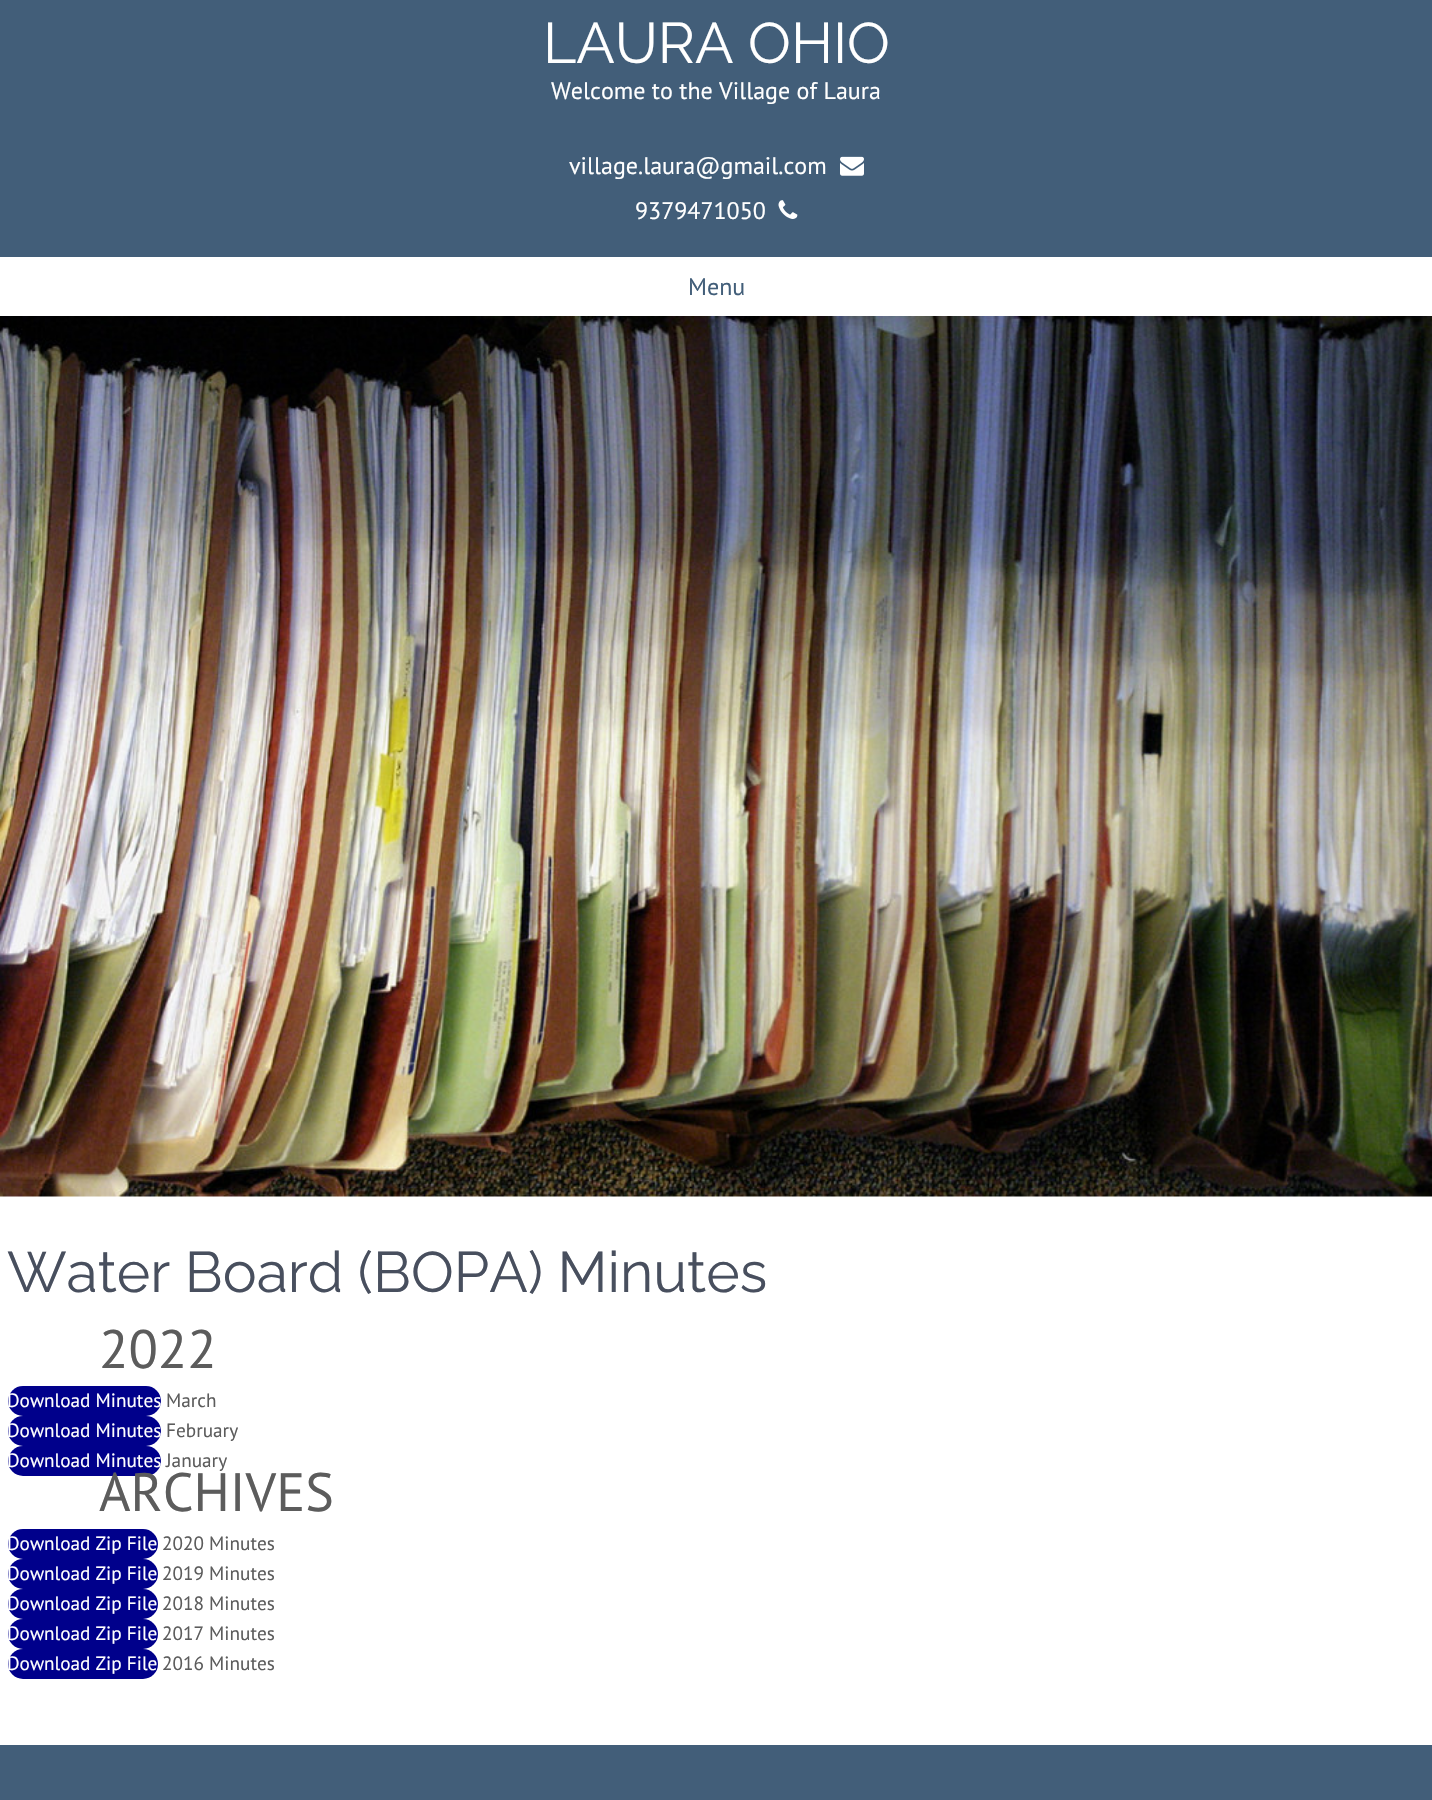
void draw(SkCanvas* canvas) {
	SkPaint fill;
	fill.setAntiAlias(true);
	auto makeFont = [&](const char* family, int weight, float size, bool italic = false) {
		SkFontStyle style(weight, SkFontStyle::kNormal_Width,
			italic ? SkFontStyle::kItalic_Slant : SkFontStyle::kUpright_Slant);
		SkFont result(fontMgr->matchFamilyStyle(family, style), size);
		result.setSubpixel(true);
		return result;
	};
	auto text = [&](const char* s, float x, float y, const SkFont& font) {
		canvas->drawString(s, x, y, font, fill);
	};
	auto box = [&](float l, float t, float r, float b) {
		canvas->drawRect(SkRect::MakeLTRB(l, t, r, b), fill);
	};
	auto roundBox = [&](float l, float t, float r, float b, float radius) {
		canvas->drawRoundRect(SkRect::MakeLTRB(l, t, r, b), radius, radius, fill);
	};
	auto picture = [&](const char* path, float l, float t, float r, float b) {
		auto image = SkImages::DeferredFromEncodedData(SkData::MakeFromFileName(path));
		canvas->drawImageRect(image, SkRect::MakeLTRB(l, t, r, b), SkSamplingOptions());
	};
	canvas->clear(0xFFFFFFFF);
	fill.setColor(0xFF425E79);
	box(0, 0, 1432, 257);
	picture("image0.png", 840, 156, 864, 176);
	picture("image1.png", 778, 200, 798, 219);
	picture("image2.png", 0, 316, 1432, 1197);
	fill.setColor(0xFF00008B);
	roundBox(8, 1386, 161, 1416, 15);
	roundBox(8, 1416, 161, 1446, 15);
	roundBox(8, 1446, 161, 1476, 15);
	roundBox(8, 1529, 158, 1559, 15);
	roundBox(8, 1559, 158, 1589, 15);
	roundBox(8, 1589, 158, 1619, 15);
	roundBox(8, 1619, 158, 1649, 15);
	roundBox(8, 1649, 158, 1679, 15);
	fill.setColor(0xFF425E79);
	box(0, 1745, 1432, 1800);
	auto font1 = makeFont("Raleway", 400, 57);
	fill.setColor(0xFFFFFFFF);
	text("LAURA OHIO", 543, 63, font1);
	auto font2 = makeFont("PT Sans", 400, 24);
	text("Welcome to the Village of Laura", 551, 99, font2);
	text("village.laura@gmail.com", 569, 174, font2);
	text("9379471050", 635, 219, font2);
	fill.setColor(0xFF425E79);
	text("Menu", 688, 295, font2);
	fill.setColor(0xFF484F5E);
	text("Water Board (BOPA) Minutes", 7, 1292, font1);
	auto font3 = makeFont("PT Sans", 400, 54);
	fill.setColor(0xFF5C5C5C);
	text("2022", 99, 1368, font3);
	auto font4 = makeFont("PT Sans", 400, 19.25f);
	fill.setColor(0xFFFFFFFF);
	text("Download Minutes", 7, 1407, font4);
	fill.setColor(0xFF5C5C5C);
	text("March", 166, 1407, font4);
	fill.setColor(0xFFFFFFFF);
	text("Download Minutes", 7, 1437, font4);
	fill.setColor(0xFF5C5C5C);
	text("February", 166, 1437, font4);
	fill.setColor(0xFFFFFFFF);
	text("Download Minutes", 7, 1467, font4);
	fill.setColor(0xFF5C5C5C);
	text("January", 166, 1467, font4);
	text("ARCHIVES", 99, 1511, font3);
	fill.setColor(0xFFFFFFFF);
	text("Download Zip File", 7, 1550, font4);
	fill.setColor(0xFF5C5C5C);
	text("2020 Minutes", 162, 1550, font4);
	fill.setColor(0xFFFFFFFF);
	text("Download Zip File", 7, 1580, font4);
	fill.setColor(0xFF5C5C5C);
	text("2019 Minutes", 162, 1580, font4);
	fill.setColor(0xFFFFFFFF);
	text("Download Zip File", 7, 1610, font4);
	fill.setColor(0xFF5C5C5C);
	text("2018 Minutes", 162, 1610, font4);
	fill.setColor(0xFFFFFFFF);
	text("Download Zip File", 7, 1640, font4);
	fill.setColor(0xFF5C5C5C);
	text("2017 Minutes", 162, 1640, font4);
	fill.setColor(0xFFFFFFFF);
	text("Download Zip File", 7, 1670, font4);
	fill.setColor(0xFF5C5C5C);
	text("2016 Minutes", 162, 1670, font4);
}
